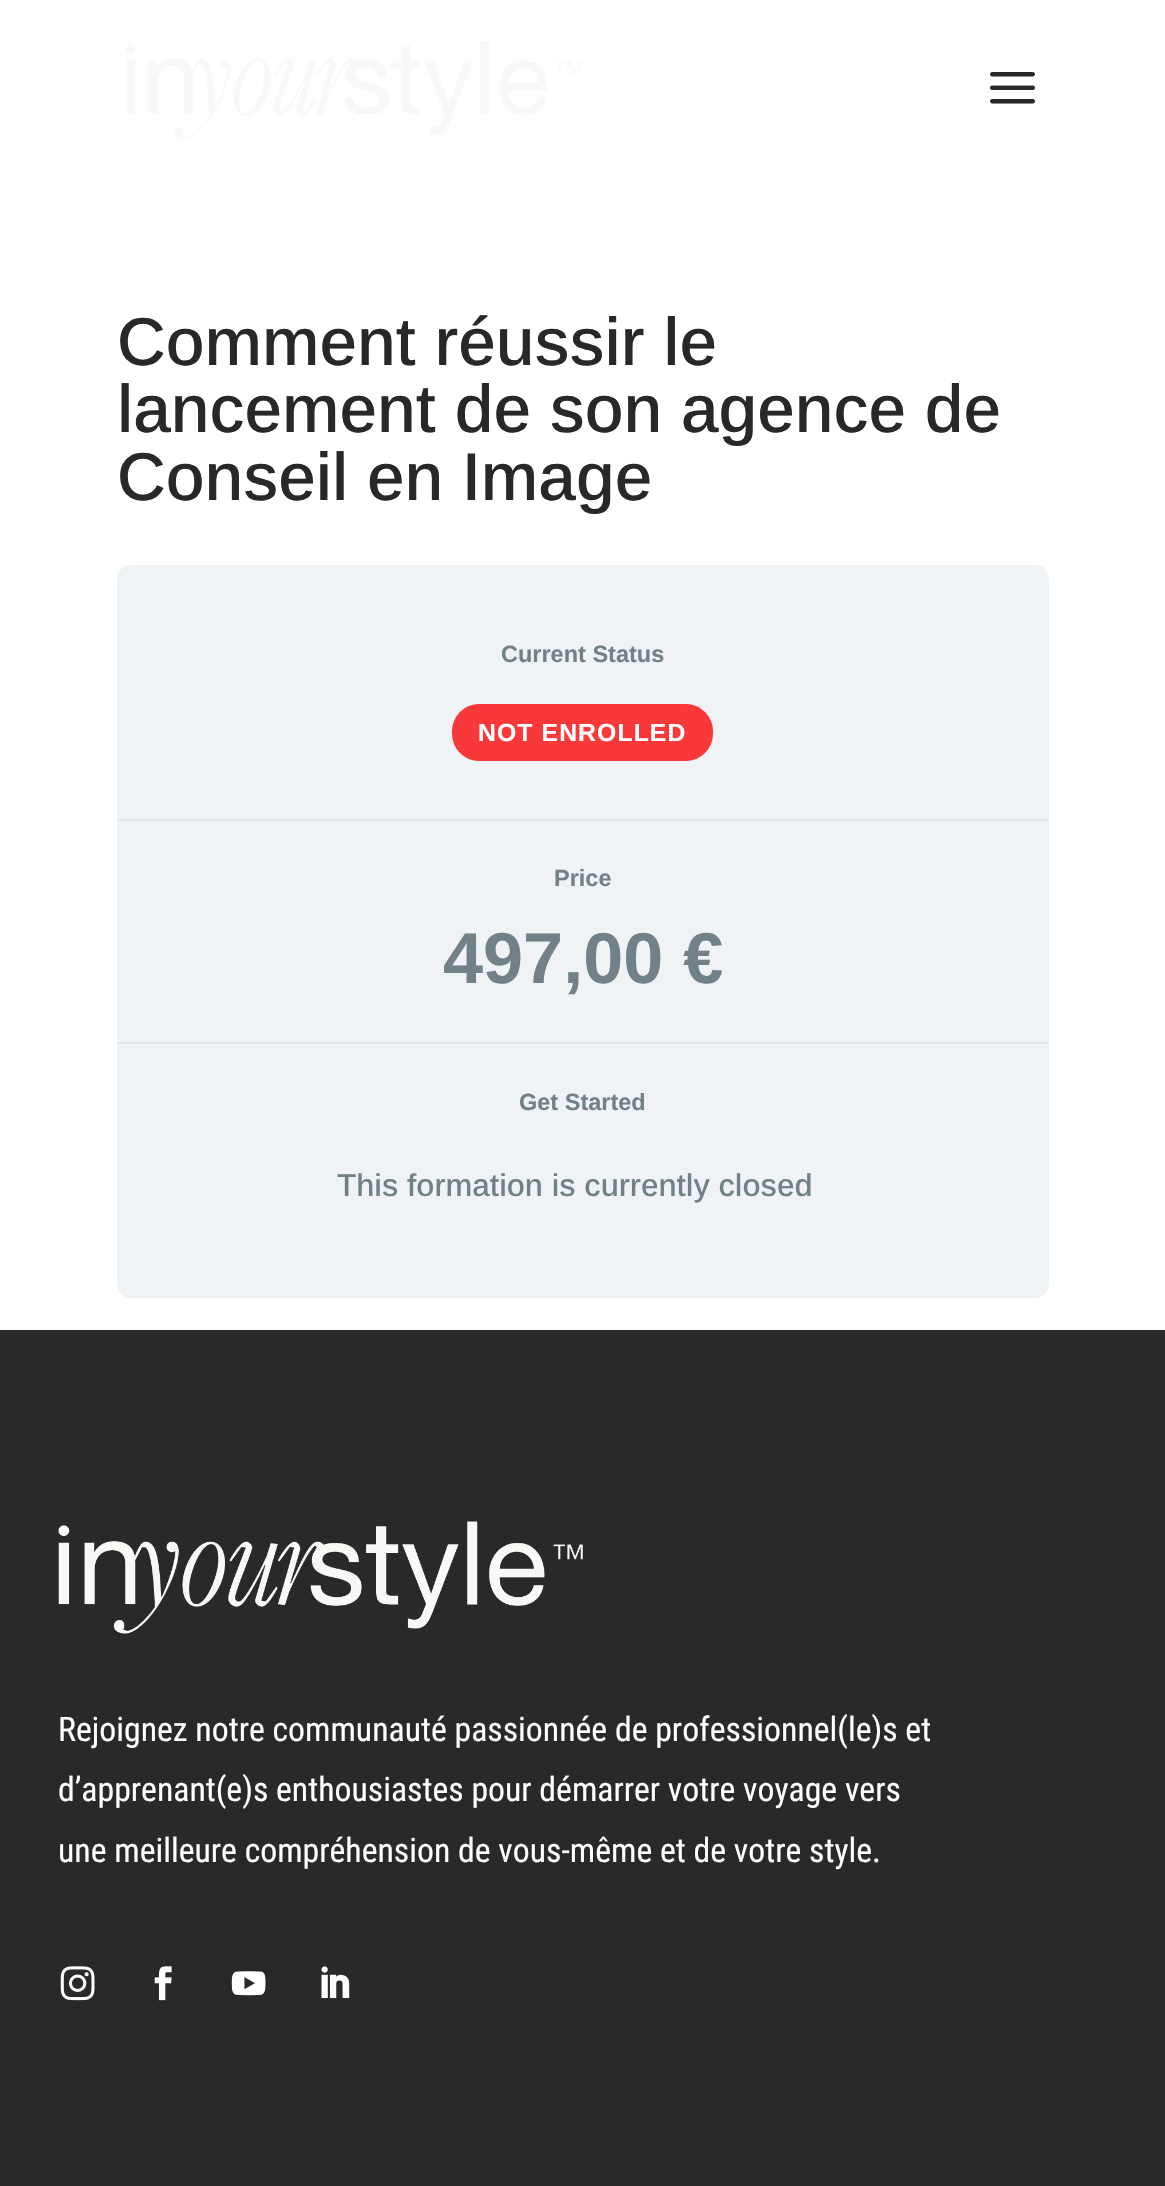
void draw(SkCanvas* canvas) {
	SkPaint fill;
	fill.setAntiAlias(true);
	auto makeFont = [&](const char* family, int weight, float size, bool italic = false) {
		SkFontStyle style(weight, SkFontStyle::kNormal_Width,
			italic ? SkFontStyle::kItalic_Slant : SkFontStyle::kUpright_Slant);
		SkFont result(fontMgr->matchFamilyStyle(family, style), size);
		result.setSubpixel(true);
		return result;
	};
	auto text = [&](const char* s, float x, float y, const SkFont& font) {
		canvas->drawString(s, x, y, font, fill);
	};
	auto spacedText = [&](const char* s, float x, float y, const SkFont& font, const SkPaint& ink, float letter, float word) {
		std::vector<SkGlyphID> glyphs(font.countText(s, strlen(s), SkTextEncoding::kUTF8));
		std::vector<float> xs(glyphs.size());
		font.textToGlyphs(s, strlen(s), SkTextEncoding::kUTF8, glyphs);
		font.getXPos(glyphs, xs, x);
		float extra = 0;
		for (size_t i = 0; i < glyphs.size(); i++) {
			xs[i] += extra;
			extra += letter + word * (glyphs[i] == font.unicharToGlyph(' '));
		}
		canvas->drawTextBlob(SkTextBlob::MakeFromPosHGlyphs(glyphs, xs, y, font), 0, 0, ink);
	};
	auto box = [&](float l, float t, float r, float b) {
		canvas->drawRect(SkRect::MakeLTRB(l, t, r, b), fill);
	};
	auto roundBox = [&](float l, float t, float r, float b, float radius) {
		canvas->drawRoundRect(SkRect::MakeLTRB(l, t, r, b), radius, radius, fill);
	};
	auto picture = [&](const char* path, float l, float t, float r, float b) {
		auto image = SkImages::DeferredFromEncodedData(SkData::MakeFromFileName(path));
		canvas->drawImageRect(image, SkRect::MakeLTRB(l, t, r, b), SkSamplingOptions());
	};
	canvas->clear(0xFFFFFFFF);
	picture("image0.png", 126, 41, 581, 140);
	picture("image1.png", 990, 72, 1035, 104);
	fill.setColor(0xFFF0F3F6);
	roundBox(117, 565, 1049, 1298, 14);
	fill.setColor(0xFFE2E7ED);
	box(117, 819, 1049, 821);
	fill.setColor(0xFFF93939);
	roundBox(452, 704, 713, 761, 27);
	fill.setColor(0xFFE2E7ED);
	box(117, 1042, 1049, 1044);
	fill.setColor(0xFF292929);
	box(0, 1330, 1165, 2186);
	picture("image2.png", 58, 1521, 583, 1634);
	picture("image3.png", 60, 1966, 95, 2001);
	picture("image4.png", 154, 1966, 172, 2001);
	picture("image5.png", 231, 1971, 266, 1996);
	picture("image6.png", 321, 1966, 350, 1998);
	auto font1 = makeFont("Arimo", 500, 67.5f);
	fill.setColor(0xFF282828);
	text("Comment réussir le", 117, 365, font1);
	text("lancement de son agence de", 117, 432, font1);
	text("Conseil en Image", 117, 500, font1);
	auto font2 = makeFont("Arimo", 700, 23.5f);
	fill.setColor(0xFF728188);
	text("Current Status", 501, 662, font2);
	auto font3 = makeFont("Arimo", 700, 24.75f);
	fill.setColor(0xFFFFFFFF);
	spacedText("NOT ENROLLED", 478, 741, font3, fill, 1.1f, 0);
	fill.setColor(0xFF728188);
	text("Price", 554, 886, font2);
	auto font4 = makeFont("Arimo", 700, 72);
	text("497,00 €", 443, 983, font4);
	text("Get Started", 519, 1110, font2);
	auto font5 = makeFont("Arimo", 500, 31.5f);
	text("This formation is currently closed", 337, 1196, font5);
	auto font6 = makeFont("Roboto Condensed", 400, 33.75f);
	fill.setColor(0xFFFFFFFF);
	text("Rejoignez notre communauté passionnée de professionnel(le)s et", 58, 1741, font6);
	text("d’apprenant(e)s enthousiastes pour démarrer votre voyage vers", 58, 1801, font6);
	text("une meilleure compréhension de vous-même et de votre style.", 58, 1862, font6);
}
